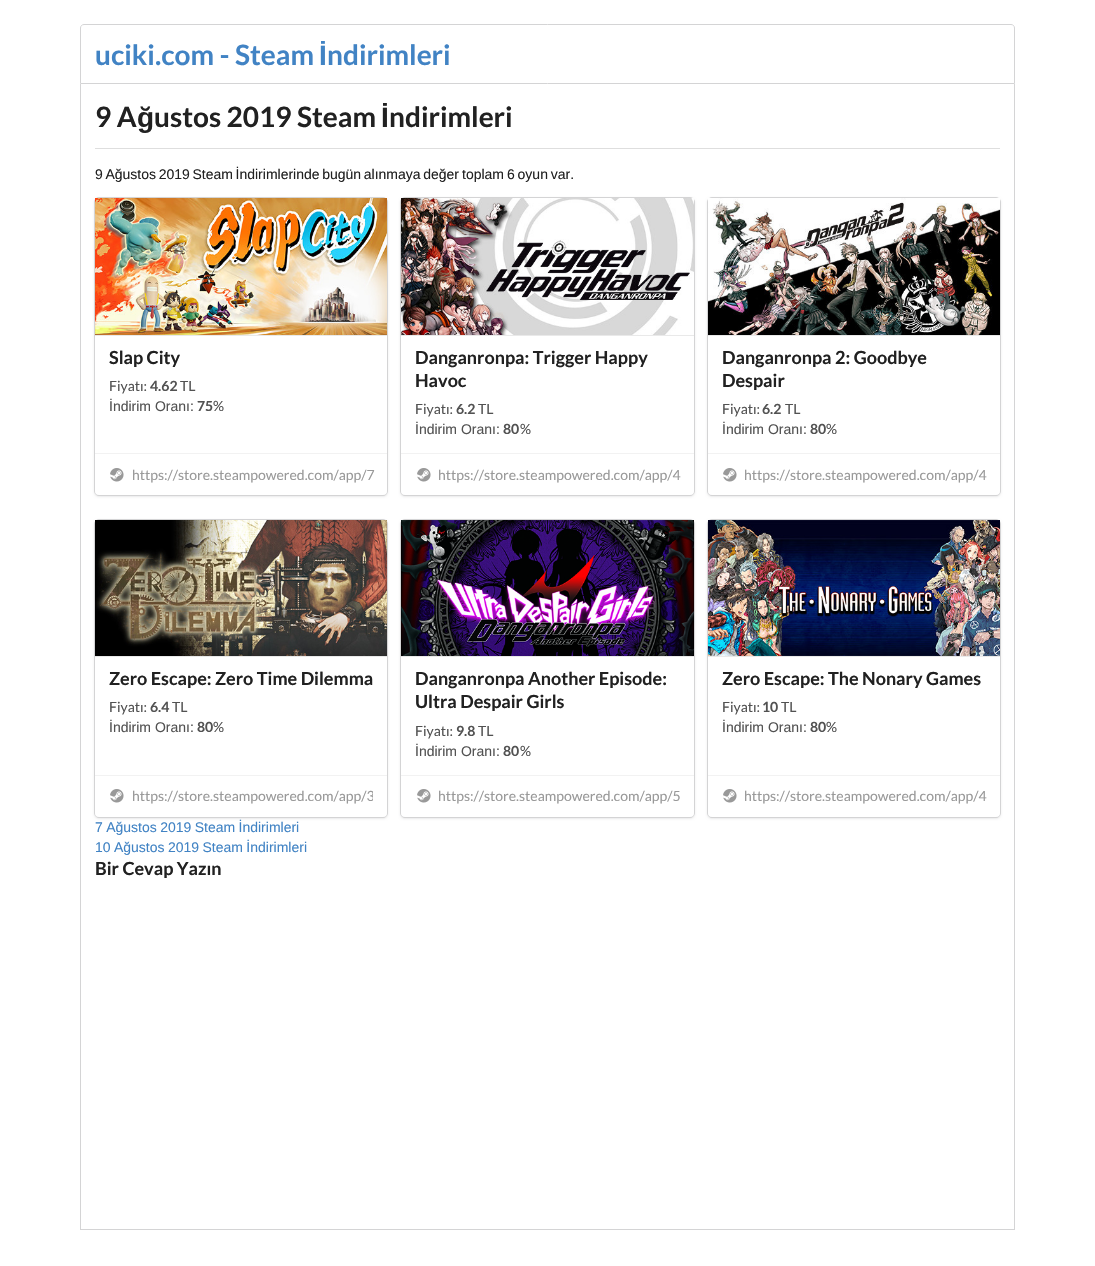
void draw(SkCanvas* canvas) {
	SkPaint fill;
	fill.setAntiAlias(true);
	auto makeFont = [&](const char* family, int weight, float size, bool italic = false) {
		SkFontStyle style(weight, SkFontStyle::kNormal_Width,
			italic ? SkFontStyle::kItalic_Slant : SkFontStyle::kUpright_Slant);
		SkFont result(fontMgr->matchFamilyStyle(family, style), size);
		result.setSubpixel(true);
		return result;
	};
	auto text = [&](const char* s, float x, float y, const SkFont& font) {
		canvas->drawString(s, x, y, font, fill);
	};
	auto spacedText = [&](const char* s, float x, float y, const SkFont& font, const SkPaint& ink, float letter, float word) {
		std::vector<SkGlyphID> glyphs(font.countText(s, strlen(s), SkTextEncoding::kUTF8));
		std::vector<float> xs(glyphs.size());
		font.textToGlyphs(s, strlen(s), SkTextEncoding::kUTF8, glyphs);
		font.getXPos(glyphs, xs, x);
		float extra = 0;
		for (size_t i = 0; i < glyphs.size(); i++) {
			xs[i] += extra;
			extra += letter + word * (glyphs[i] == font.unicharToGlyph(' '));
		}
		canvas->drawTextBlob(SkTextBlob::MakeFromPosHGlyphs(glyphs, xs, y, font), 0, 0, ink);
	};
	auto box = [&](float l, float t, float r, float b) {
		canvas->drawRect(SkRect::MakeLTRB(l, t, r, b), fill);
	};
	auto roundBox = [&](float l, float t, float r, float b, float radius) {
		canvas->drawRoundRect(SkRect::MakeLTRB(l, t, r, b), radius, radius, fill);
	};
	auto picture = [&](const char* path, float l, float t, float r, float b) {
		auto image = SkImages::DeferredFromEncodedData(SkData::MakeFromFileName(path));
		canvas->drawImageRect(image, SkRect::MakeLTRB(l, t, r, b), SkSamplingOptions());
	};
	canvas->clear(0xFFFFFFFF);
	fill.setStyle(SkPaint::kStroke_Style);
	fill.setStrokeWidth(1);
	fill.setColor(0xFFD4D4D5);
	canvas->drawPath(SkPathBuilder().moveTo(84, 24.5f).lineTo(1011, 24.5f).cubicTo(1013, 24.5f, 1014.5f, 26, 1014.5f, 28).lineTo(1014.5f, 83.5f).lineTo(80.5f, 83.5f).lineTo(80.5f, 28).cubicTo(80.5f, 26, 82, 24.5f, 84, 24.5f).close().detach(), fill);
	fill.setStyle(SkPaint::kFill_Style);
	box(1014, 84, 1015, 1230);
	box(80, 1229, 1015, 1230);
	box(80, 84, 81, 1230);
	fill.setColor(0xFFDEDEDE);
	box(95, 148, 1000, 149);
	fill.setStyle(SkPaint::kStroke_Style);
	fill.setColor(0xFFD4D4D5);
	canvas->drawRoundRect(SkRect::MakeLTRB(94.5f, 197.5f, 387.5f, 495.5f), 4.5f, 4.5f, fill);
	fill.setStyle(SkPaint::kFill_Style);
	fill.setMaskFilter(SkMaskFilter::MakeBlur(kNormal_SkBlurStyle, 1.5f));
	canvas->drawRoundRect(SkRect::MakeLTRB(95, 199, 387, 496), 4, 4, fill);
	fill.setMaskFilter(nullptr);
	fill.setColor(0xFFFFFFFF);
	roundBox(95, 198, 387, 495, 4);
	picture("image0.png", 95, 198, 387, 335);
	fill.setColor(0xFFE9E9E9);
	box(95, 335, 387, 336);
	fill.setColor(0xFFF2F2F2);
	box(95, 453, 387, 454);
	picture("image1.png", 110, 468, 124, 482);
	fill.setStyle(SkPaint::kStroke_Style);
	fill.setColor(0xFFD4D4D5);
	canvas->drawRoundRect(SkRect::MakeLTRB(400.5f, 197.5f, 694.5f, 495.5f), 4.5f, 4.5f, fill);
	fill.setStyle(SkPaint::kFill_Style);
	fill.setMaskFilter(SkMaskFilter::MakeBlur(kNormal_SkBlurStyle, 1.5f));
	canvas->drawRoundRect(SkRect::MakeLTRB(401, 199, 694, 496), 4, 4, fill);
	fill.setMaskFilter(nullptr);
	fill.setColor(0xFFFFFFFF);
	roundBox(401, 198, 694, 495, 4);
	picture("image2.png", 401, 198, 694, 335);
	fill.setColor(0xFFE9E9E9);
	box(401, 335, 694, 336);
	fill.setColor(0xFFF2F2F2);
	box(401, 453, 694, 454);
	picture("image1.png", 417, 468, 431, 482);
	fill.setStyle(SkPaint::kStroke_Style);
	fill.setColor(0xFFD4D4D5);
	canvas->drawRoundRect(SkRect::MakeLTRB(707.5f, 197.5f, 1000.5f, 495.5f), 4.5f, 4.5f, fill);
	fill.setStyle(SkPaint::kFill_Style);
	fill.setMaskFilter(SkMaskFilter::MakeBlur(kNormal_SkBlurStyle, 1.5f));
	canvas->drawRoundRect(SkRect::MakeLTRB(708, 199, 1000, 496), 4, 4, fill);
	fill.setMaskFilter(nullptr);
	fill.setColor(0xFFFFFFFF);
	roundBox(708, 198, 1000, 495, 4);
	picture("image3.png", 708, 198, 1000, 335);
	fill.setColor(0xFFE9E9E9);
	box(708, 335, 1000, 336);
	fill.setColor(0xFFF2F2F2);
	box(708, 453, 1000, 454);
	picture("image1.png", 723, 468, 737, 482);
	fill.setStyle(SkPaint::kStroke_Style);
	fill.setColor(0xFFD4D4D5);
	canvas->drawRoundRect(SkRect::MakeLTRB(94.5f, 519.5f, 387.5f, 817.5f), 4.5f, 4.5f, fill);
	fill.setStyle(SkPaint::kFill_Style);
	fill.setMaskFilter(SkMaskFilter::MakeBlur(kNormal_SkBlurStyle, 1.5f));
	canvas->drawRoundRect(SkRect::MakeLTRB(95, 521, 387, 818), 4, 4, fill);
	fill.setMaskFilter(nullptr);
	fill.setColor(0xFFFFFFFF);
	roundBox(95, 520, 387, 817, 4);
	picture("image4.png", 95, 520, 387, 656);
	fill.setColor(0xFFE9E9E9);
	box(95, 656, 387, 657);
	fill.setColor(0xFFF2F2F2);
	box(95, 775, 387, 776);
	picture("image1.png", 110, 789, 124, 803);
	fill.setStyle(SkPaint::kStroke_Style);
	fill.setColor(0xFFD4D4D5);
	canvas->drawRoundRect(SkRect::MakeLTRB(400.5f, 519.5f, 694.5f, 817.5f), 4.5f, 4.5f, fill);
	fill.setStyle(SkPaint::kFill_Style);
	fill.setMaskFilter(SkMaskFilter::MakeBlur(kNormal_SkBlurStyle, 1.5f));
	canvas->drawRoundRect(SkRect::MakeLTRB(401, 521, 694, 818), 4, 4, fill);
	fill.setMaskFilter(nullptr);
	fill.setColor(0xFFFFFFFF);
	roundBox(401, 520, 694, 817, 4);
	picture("image5.png", 401, 520, 694, 656);
	fill.setColor(0xFFE9E9E9);
	box(401, 656, 694, 657);
	fill.setColor(0xFFF2F2F2);
	box(401, 775, 694, 776);
	picture("image1.png", 417, 789, 431, 803);
	fill.setStyle(SkPaint::kStroke_Style);
	fill.setColor(0xFFD4D4D5);
	canvas->drawRoundRect(SkRect::MakeLTRB(707.5f, 519.5f, 1000.5f, 817.5f), 4.5f, 4.5f, fill);
	fill.setStyle(SkPaint::kFill_Style);
	fill.setMaskFilter(SkMaskFilter::MakeBlur(kNormal_SkBlurStyle, 1.5f));
	canvas->drawRoundRect(SkRect::MakeLTRB(708, 521, 1000, 818), 4, 4, fill);
	fill.setMaskFilter(nullptr);
	fill.setColor(0xFFFFFFFF);
	roundBox(708, 520, 1000, 817, 4);
	picture("image6.png", 708, 520, 1000, 656);
	fill.setColor(0xFFE9E9E9);
	box(708, 656, 1000, 657);
	fill.setColor(0xFFF2F2F2);
	box(708, 775, 1000, 776);
	picture("image1.png", 723, 789, 737, 803);
	auto font1 = makeFont("Lato", 700, 28);
	fill.setColor(0xFF4183C4);
	text("uciki.com - Steam", 95, 65, font1);
	auto font2 = makeFont("Liberation Sans", 700, 28);
	text("İ", 319, 65, font2);
	text("ndirimleri", 327, 65, font1);
	fill.setColor(0xFF212121);
	text("9 A", 95, 127, font1);
	text("ğ", 137, 127, font2);
	text("ustos 2019 Steam", 154, 127, font1);
	text("İ", 381, 127, font2);
	text("ndirimleri", 389, 127, font1);
	auto font3 = makeFont("Liberation Sans", 400, 14);
	spacedText("9 Ağustos 2019 Steam İndirimlerinde bugün alınmaya değer", 95, 179, font3, fill, 0, -1.25f);
	spacedText("toplam 6 oyun var.", 462, 179, font3, fill, 0, -1);
	auto font4 = makeFont("Lato", 700, 18);
	text("Slap City", 109, 364, font4);
	auto font5 = makeFont("Lato", 400, 14);
	fill.setColor(0xFF525252);
	text("Fiyatı:", 109, 391, font5);
	auto font6 = makeFont("Lato", 700, 14);
	text("4.62", 150, 391, font6);
	text("TL", 180, 391, font5);
	text("İndirim Oranı:", 109, 411, font3);
	text("75", 197, 411, font6);
	text("%", 213, 411, font5);
	fill.setColor(0xFF999999);
	text("https://store.steampowered.com/app/7", 132, 480, font5);
	fill.setColor(0xFF212121);
	text("Danganronpa: Trigger Happy", 415, 364, font4);
	text("Havoc", 415, 387, font4);
	fill.setColor(0xFF525252);
	text("Fiyatı:", 415, 414, font5);
	text("6.2", 456, 414, font6);
	text("TL", 478, 414, font5);
	text("İndirim Oranı:", 415, 434, font3);
	text("80", 503, 434, font6);
	text("%", 520, 434, font5);
	fill.setColor(0xFF999999);
	text("https://store.steampowered.com/app/4", 438, 480, font5);
	fill.setColor(0xFF212121);
	text("Danganronpa 2: Goodbye", 722, 364, font4);
	text("Despair", 722, 387, font4);
	fill.setColor(0xFF525252);
	text("Fiyatı:", 722, 414, font5);
	text("6.2", 762, 414, font6);
	text("TL", 785, 414, font5);
	text("İndirim Oranı:", 722, 434, font3);
	text("80", 810, 434, font6);
	text("%", 826, 434, font5);
	fill.setColor(0xFF999999);
	text("https://store.steampowered.com/app/4", 744, 480, font5);
	fill.setColor(0xFF212121);
	text("Zero Escape: Zero Time Dilemma", 109, 685, font4);
	fill.setColor(0xFF525252);
	text("Fiyatı:", 109, 712, font5);
	text("6.4", 150, 712, font6);
	text("TL", 172, 712, font5);
	text("İndirim Oranı:", 109, 732, font3);
	text("80", 197, 732, font6);
	text("%", 213, 732, font5);
	canvas->save();
	canvas->clipRect(SkRect::MakeLTRB(109, 786, 373, 806));
	fill.setColor(0xFF999999);
	text("https://store.steampowered.com/app/3", 132, 801, font5);
	canvas->restore();
	fill.setColor(0xFF212121);
	text("Danganronpa Another Episode:", 415, 685, font4);
	text("Ultra Despair Girls", 415, 708, font4);
	fill.setColor(0xFF525252);
	text("Fiyatı:", 415, 736, font5);
	text("9.8", 456, 736, font6);
	text("TL", 478, 736, font5);
	text("İndirim Oranı:", 415, 756, font3);
	text("80", 503, 756, font6);
	text("%", 520, 756, font5);
	fill.setColor(0xFF999999);
	text("https://store.steampowered.com/app/5", 438, 801, font5);
	fill.setColor(0xFF212121);
	text("Zero Escape: The Nonary Games", 722, 685, font4);
	fill.setColor(0xFF525252);
	text("Fiyatı:", 722, 712, font5);
	text("10", 762, 712, font6);
	text("TL", 781, 712, font5);
	text("İndirim Oranı:", 722, 732, font3);
	text("80", 810, 732, font6);
	text("%", 826, 732, font5);
	fill.setColor(0xFF999999);
	text("https://store.steampowered.com/app/4", 744, 801, font5);
	fill.setColor(0xFF4183C4);
	spacedText("7 Ağustos 2019 Steam İndirimleri", 95, 832, font3, fill, 0, -0.5f);
	spacedText("10 Ağustos 2019 Steam İndirimleri", 95, 852, font3, fill, 0, -0.5f);
	fill.setColor(0xFF212121);
	text("Bir Cevap Yazın", 95, 875, font4);
}
